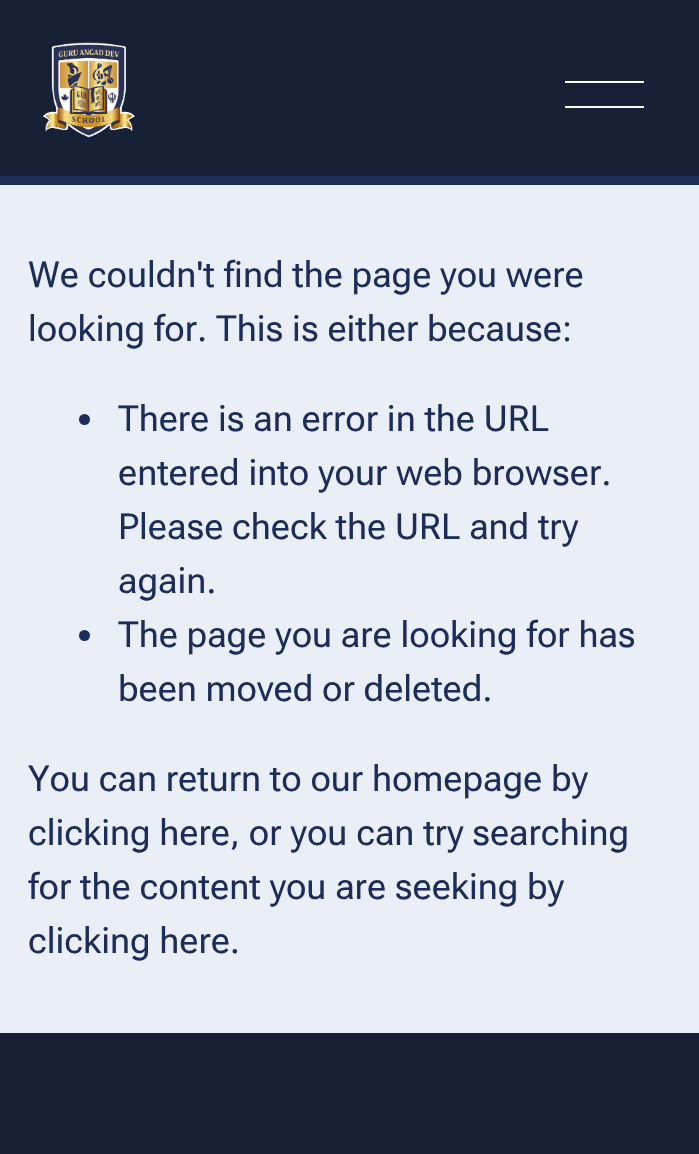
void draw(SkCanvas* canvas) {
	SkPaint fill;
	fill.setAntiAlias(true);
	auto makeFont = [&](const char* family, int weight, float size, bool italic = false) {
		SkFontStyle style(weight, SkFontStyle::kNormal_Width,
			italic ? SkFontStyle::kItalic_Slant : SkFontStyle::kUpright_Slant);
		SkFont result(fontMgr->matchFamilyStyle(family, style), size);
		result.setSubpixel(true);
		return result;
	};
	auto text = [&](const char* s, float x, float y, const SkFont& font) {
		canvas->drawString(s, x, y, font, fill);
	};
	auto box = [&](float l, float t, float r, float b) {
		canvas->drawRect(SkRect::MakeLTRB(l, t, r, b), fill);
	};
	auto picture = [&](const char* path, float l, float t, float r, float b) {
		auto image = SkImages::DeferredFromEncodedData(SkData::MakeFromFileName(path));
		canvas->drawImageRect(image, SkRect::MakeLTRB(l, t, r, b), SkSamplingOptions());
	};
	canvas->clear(0xFFEAEEF6);
	fill.setColor(0xFF172136);
	box(0, 0, 699, 176);
	picture("image0.png", 42, 42, 135, 138);
	fill.setColor(0xFFFFFFFF);
	box(565, 81, 644, 83);
	box(565, 106, 644, 108);
	fill.setColor(0xFF1C2D59);
	box(0, 176, 699, 185);
	canvas->drawCircle(84.5f, 419.5f, 5.5f, fill);
	canvas->drawCircle(84.5f, 635.5f, 5.5f, fill);
	fill.setColor(0xFF172136);
	box(0, 1033, 699, 1154);
	auto font1 = makeFont("Roboto Flex", 400, 36);
	fill.setColor(0xFF1C2D59);
	text("We couldn't find the page you were", 28, 287, font1);
	text("looking for. This is either because:", 28, 341, font1);
	text("There is an error in the URL", 118, 431, font1);
	text("entered into your web browser.", 118, 485, font1);
	text("Please check the URL and try", 118, 539, font1);
	text("again.", 118, 593, font1);
	text("The page you are looking for has", 118, 647, font1);
	text("been moved or deleted.", 118, 701, font1);
	text("You can return to our homepage by", 28, 791, font1);
	text("clicking here, or you can try searching", 28, 845, font1);
	text("for the content you are seeking by", 28, 899, font1);
	text("clicking here.", 28, 953, font1);
}
